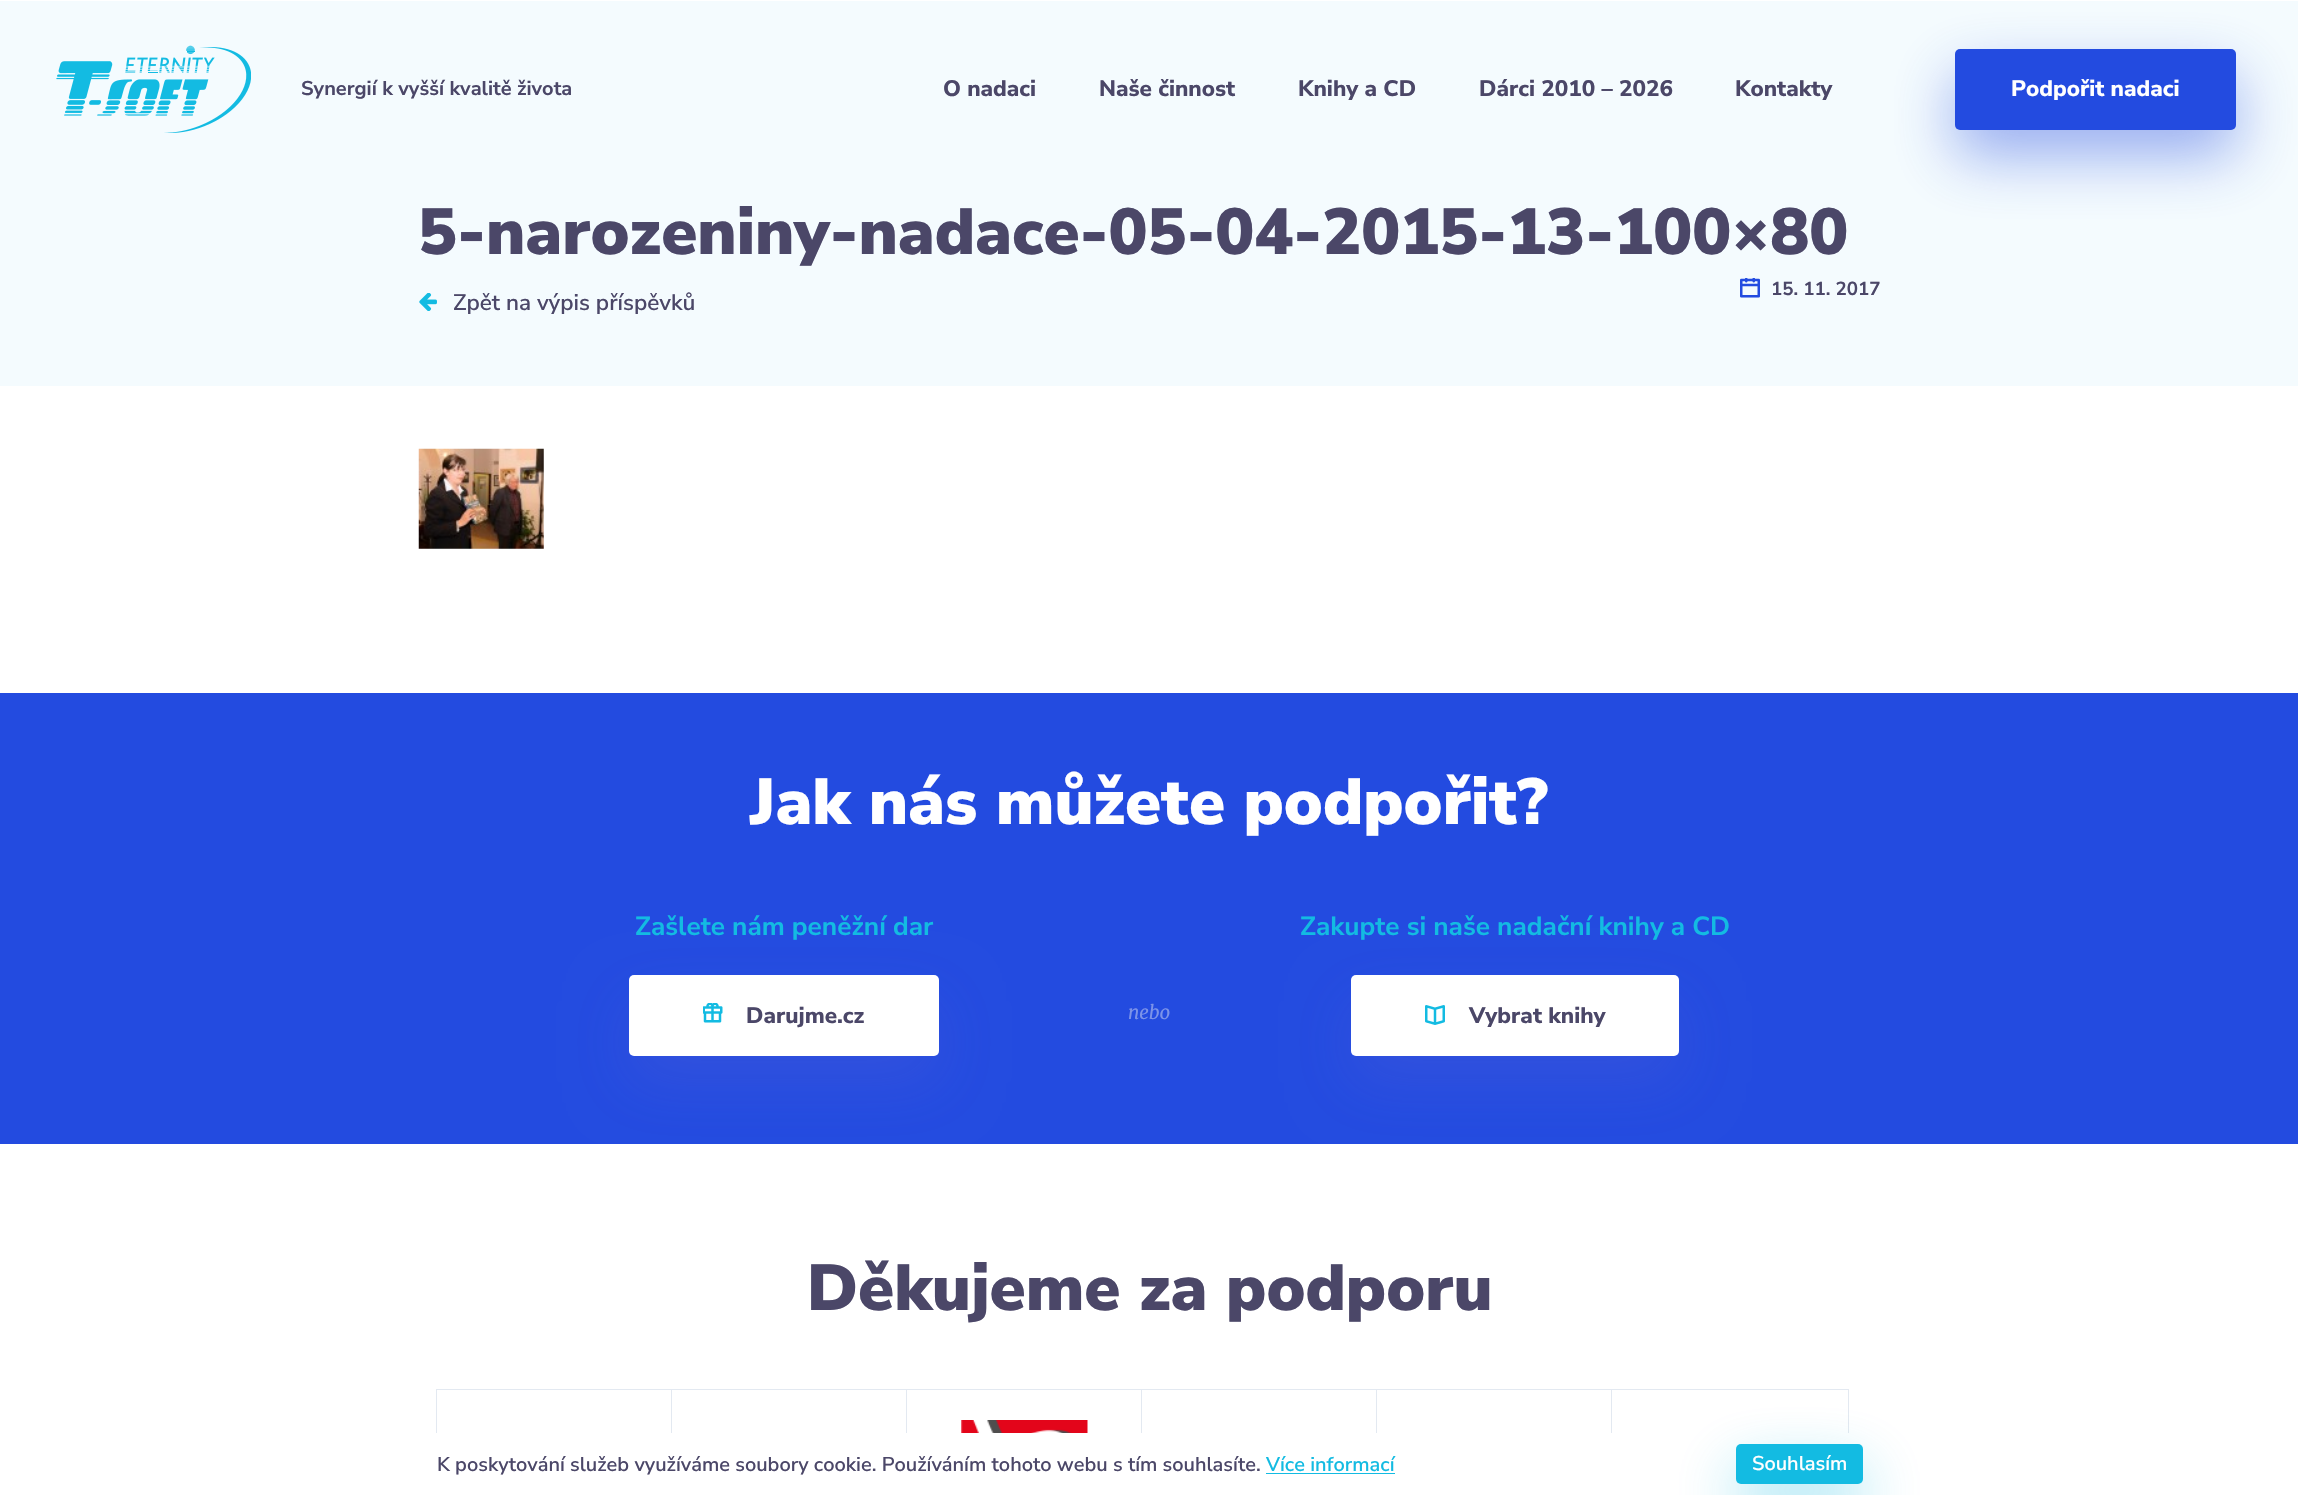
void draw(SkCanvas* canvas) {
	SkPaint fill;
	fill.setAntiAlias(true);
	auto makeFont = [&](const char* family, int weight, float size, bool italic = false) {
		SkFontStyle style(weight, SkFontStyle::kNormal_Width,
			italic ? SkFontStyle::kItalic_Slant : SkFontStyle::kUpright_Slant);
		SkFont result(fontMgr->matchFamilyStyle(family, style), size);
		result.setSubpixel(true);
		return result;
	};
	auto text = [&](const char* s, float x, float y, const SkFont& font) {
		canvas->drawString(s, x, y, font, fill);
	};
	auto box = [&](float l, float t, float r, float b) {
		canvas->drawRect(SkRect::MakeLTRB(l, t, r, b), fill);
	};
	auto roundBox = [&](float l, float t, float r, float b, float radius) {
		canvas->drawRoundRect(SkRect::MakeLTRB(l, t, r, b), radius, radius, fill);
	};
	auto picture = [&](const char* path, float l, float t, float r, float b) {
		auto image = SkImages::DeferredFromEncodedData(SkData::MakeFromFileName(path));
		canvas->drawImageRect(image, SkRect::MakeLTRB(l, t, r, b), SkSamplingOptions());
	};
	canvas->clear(0xFFFFFFFF);
	fill.setColor(0xFFF4FBFE);
	box(0, 1, 2298, 386);
	picture("image0.png", 56, 45, 251, 133);
	fill.setColor(0x73234BE0);
	fill.setMaskFilter(SkMaskFilter::MakeBlur(kNormal_SkBlurStyle, 30.5f));
	canvas->drawRoundRect(SkRect::MakeLTRB(1955, 75, 2236, 156), 5, 5, fill);
	fill.setMaskFilter(nullptr);
	fill.setColor(0xFF234BE0);
	roundBox(1955, 49, 2236, 130, 5);
	picture("image1.png", 1740, 278, 1760, 298);
	picture("image2.png", 419, 293, 437, 311);
	picture("image3.png", 418, 448, 544, 549);
	box(0, 693, 2298, 1144);
	fill.setColor(0x218E74CB);
	fill.setMaskFilter(SkMaskFilter::MakeBlur(kNormal_SkBlurStyle, 30.5f));
	canvas->drawRoundRect(SkRect::MakeLTRB(629, 1001, 939, 1083), 5, 5, fill);
	fill.setMaskFilter(nullptr);
	fill.setColor(0xFFFFFFFF);
	roundBox(629, 975, 939, 1056, 5);
	picture("image4.png", 703, 1003, 723, 1023);
	fill.setColor(0x218E74CB);
	fill.setMaskFilter(SkMaskFilter::MakeBlur(kNormal_SkBlurStyle, 30.5f));
	canvas->drawRoundRect(SkRect::MakeLTRB(1351, 1001, 1679, 1083), 5, 5, fill);
	fill.setMaskFilter(nullptr);
	fill.setColor(0xFFFFFFFF);
	roundBox(1351, 975, 1679, 1056, 5);
	picture("image5.png", 1425, 1005, 1445, 1025);
	fill.setStyle(SkPaint::kStroke_Style);
	fill.setStrokeWidth(1);
	fill.setColor(0xFFE3E9F1);
	canvas->drawRect(SkRect::MakeLTRB(436.5f, 1389.5f, 673.5f, 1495.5f), fill);
	fill.setStyle(SkPaint::kFill_Style);
	fill.setColor(0xFFFFFFFF);
	box(673, 1390, 674, 1433);
	fill.setStyle(SkPaint::kStroke_Style);
	fill.setColor(0xFFE3E9F1);
	canvas->drawRect(SkRect::MakeLTRB(671.5f, 1389.5f, 908.5f, 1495.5f), fill);
	fill.setStyle(SkPaint::kFill_Style);
	fill.setColor(0xFFFFFFFF);
	box(908, 1390, 909, 1433);
	fill.setStyle(SkPaint::kStroke_Style);
	fill.setColor(0xFFE3E9F1);
	canvas->drawRect(SkRect::MakeLTRB(906.5f, 1389.5f, 1143.5f, 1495.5f), fill);
	picture("image6.png", 961, 1420, 1088, 1433);
	fill.setStyle(SkPaint::kFill_Style);
	fill.setColor(0xFFFFFFFF);
	box(1143, 1390, 1144, 1433);
	fill.setStyle(SkPaint::kStroke_Style);
	fill.setColor(0xFFE3E9F1);
	canvas->drawRect(SkRect::MakeLTRB(1141.5f, 1389.5f, 1378.5f, 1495.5f), fill);
	fill.setStyle(SkPaint::kFill_Style);
	fill.setColor(0xFFFFFFFF);
	box(1378, 1390, 1379, 1433);
	fill.setStyle(SkPaint::kStroke_Style);
	fill.setColor(0xFFE3E9F1);
	canvas->drawRect(SkRect::MakeLTRB(1376.5f, 1389.5f, 1613.5f, 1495.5f), fill);
	fill.setStyle(SkPaint::kFill_Style);
	fill.setColor(0xFFFFFFFF);
	box(1613, 1390, 1614, 1433);
	fill.setStyle(SkPaint::kStroke_Style);
	fill.setColor(0xFFE3E9F1);
	canvas->drawRect(SkRect::MakeLTRB(1611.5f, 1389.5f, 1848.5f, 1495.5f), fill);
	fill.setStyle(SkPaint::kFill_Style);
	fill.setColor(0xFFFFFFFF);
	box(436, 1433, 1849, 1495);
	fill.setColor(0xFF13BBE2);
	box(1266, 1473, 1395, 1474);
	fill.setColor(0x7313BBE2);
	fill.setMaskFilter(SkMaskFilter::MakeBlur(kNormal_SkBlurStyle, 30.5f));
	canvas->drawRoundRect(SkRect::MakeLTRB(1736, 1470, 1863, 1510), 5, 5, fill);
	fill.setMaskFilter(nullptr);
	fill.setColor(0xFF13BBE2);
	roundBox(1736, 1444, 1863, 1484, 5);
	auto font1 = makeFont("Nunito Sans", 700, 20);
	fill.setColor(0xFF4B4768);
	text("Synergií k vyšší kvalitě života", 301, 95, font1);
	auto font2 = makeFont("Nunito Sans", 800, 22.5f);
	text("O nadaci", 943, 96, font2);
	text("Naše činnost", 1099, 96, font2);
	text("Knihy a CD", 1298, 96, font2);
	text("Dárci 2010 – 2026", 1479, 96, font2);
	text("Kontakty", 1735, 96, font2);
	fill.setColor(0xFFFFFFFF);
	text("Podpořit nadaci", 2011, 96, font2);
	auto font3 = makeFont("Nunito Sans", 900, 65);
	fill.setColor(0xFF4B4768);
	text("5-narozeniny-nadace-05-04-2015-13-100×80", 418, 254, font3);
	auto font4 = makeFont("Nunito Sans", 700, 18.75f);
	text("15. 11. 2017", 1771, 295, font4);
	auto font5 = makeFont("Nunito Sans", 600, 22.5f);
	text("Zpět na výpis příspěvků", 453, 310, font5);
	fill.setColor(0xFFFFFFFF);
	text("Jak nás můžete podpořit?", 750, 824, font3);
	auto font6 = makeFont("Nunito Sans", 700, 26.25f);
	fill.setColor(0xFF13BBE2);
	text("Zašlete nám peněžní dar", 635, 935, font6);
	fill.setColor(0xFF4B4768);
	text("Darujme.cz", 746, 1023, font2);
	auto font7 = makeFont("Merriweather", 300, 18.75f, true);
	fill.setColor(0xFF7C93E9);
	text("nebo", 1128, 1019, font7);
	fill.setColor(0xFF13BBE2);
	text("Zakupte si naše nadační knihy a CD", 1300, 935, font6);
	fill.setColor(0xFF4B4768);
	text("Vybrat knihy", 1469, 1023, font2);
	text("Děkujeme za podporu", 807, 1310, font3);
	auto font8 = makeFont("Nunito Sans", 600, 20);
	text("K poskytování služeb využíváme soubory cookie. Používáním tohoto webu s tím souhlasíte.", 437, 1471, font8);
	fill.setColor(0xFF13BBE2);
	text("Více informací", 1266, 1471, font8);
	fill.setColor(0xFFFFFFFF);
	text("Souhlasím", 1752, 1470, font8);
}
